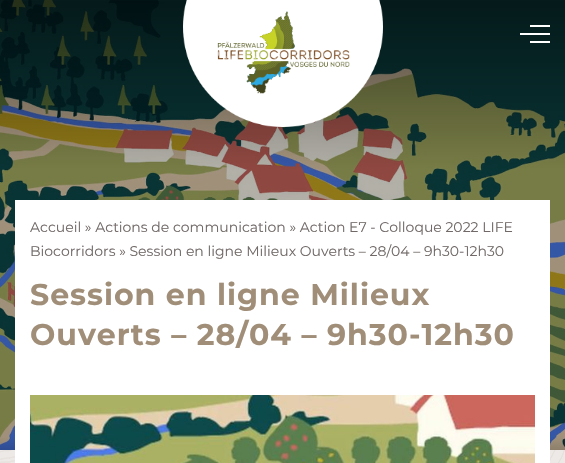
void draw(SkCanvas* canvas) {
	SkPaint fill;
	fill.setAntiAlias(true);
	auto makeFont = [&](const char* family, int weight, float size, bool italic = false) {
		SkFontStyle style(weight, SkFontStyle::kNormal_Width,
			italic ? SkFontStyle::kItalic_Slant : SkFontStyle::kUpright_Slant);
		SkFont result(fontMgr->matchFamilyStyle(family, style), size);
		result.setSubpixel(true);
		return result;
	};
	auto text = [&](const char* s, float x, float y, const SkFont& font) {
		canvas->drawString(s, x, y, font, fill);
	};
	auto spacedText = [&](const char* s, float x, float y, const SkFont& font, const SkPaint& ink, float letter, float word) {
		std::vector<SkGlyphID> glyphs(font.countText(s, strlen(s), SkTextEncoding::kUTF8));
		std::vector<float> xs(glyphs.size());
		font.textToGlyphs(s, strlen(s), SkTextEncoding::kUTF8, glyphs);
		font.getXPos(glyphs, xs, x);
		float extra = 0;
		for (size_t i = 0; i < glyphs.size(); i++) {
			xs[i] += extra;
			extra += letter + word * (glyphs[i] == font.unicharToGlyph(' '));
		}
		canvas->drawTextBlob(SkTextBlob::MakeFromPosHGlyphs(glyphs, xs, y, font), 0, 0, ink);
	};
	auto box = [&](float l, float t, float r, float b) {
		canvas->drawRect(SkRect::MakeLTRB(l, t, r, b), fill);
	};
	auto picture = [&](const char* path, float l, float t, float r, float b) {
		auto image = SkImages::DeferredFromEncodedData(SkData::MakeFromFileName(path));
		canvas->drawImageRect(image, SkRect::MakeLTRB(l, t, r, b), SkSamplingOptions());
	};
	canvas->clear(0xFFEDE9E6);
	picture("image0.png", 0, 450, 565, 463);
	picture("image2.png", 0, 0, 565, 450);
	picture("image1.png", 183, 0, 383, 127);
	fill.setColor(0xFFFFFFFF);
	box(530, 25, 550, 27);
	box(520, 33, 550, 35);
	box(530, 41, 550, 43);
	box(15, 200, 550, 463);
	picture("image3.png", 30, 395, 535, 463);
	auto font1 = makeFont("Montserrat", 400, 14);
	fill.setColor(0xFF706967);
	text("Accueil » Actions de communication » Action E7 - Colloque 2022 LIFE", 30, 232, font1);
	text("Biocorridors » Session en ligne Milieux Ouverts – 28/04 – 9h30-12h30", 30, 256, font1);
	auto font2 = makeFont("Montserrat", 700, 30);
	fill.setColor(0xFFA08E78);
	spacedText("Session en ligne Milieux", 30, 305, font2, fill, 1, 0);
	spacedText("Ouverts – 28/04 – 9h30-12h30", 30, 345, font2, fill, 1, 0);
}
